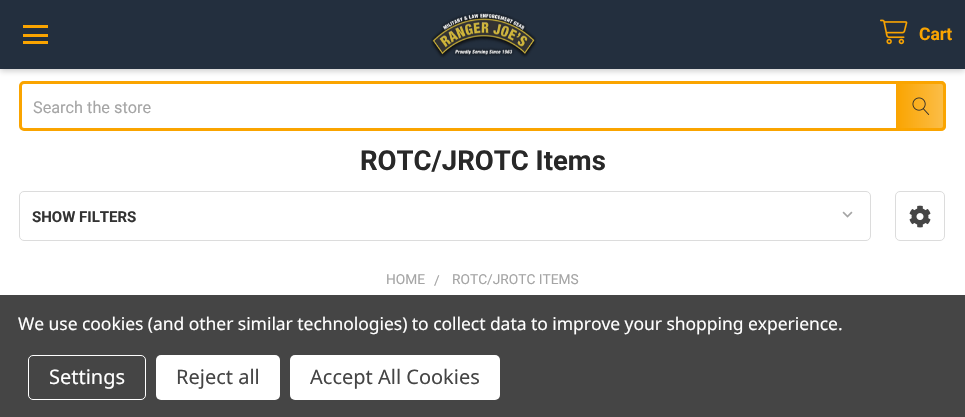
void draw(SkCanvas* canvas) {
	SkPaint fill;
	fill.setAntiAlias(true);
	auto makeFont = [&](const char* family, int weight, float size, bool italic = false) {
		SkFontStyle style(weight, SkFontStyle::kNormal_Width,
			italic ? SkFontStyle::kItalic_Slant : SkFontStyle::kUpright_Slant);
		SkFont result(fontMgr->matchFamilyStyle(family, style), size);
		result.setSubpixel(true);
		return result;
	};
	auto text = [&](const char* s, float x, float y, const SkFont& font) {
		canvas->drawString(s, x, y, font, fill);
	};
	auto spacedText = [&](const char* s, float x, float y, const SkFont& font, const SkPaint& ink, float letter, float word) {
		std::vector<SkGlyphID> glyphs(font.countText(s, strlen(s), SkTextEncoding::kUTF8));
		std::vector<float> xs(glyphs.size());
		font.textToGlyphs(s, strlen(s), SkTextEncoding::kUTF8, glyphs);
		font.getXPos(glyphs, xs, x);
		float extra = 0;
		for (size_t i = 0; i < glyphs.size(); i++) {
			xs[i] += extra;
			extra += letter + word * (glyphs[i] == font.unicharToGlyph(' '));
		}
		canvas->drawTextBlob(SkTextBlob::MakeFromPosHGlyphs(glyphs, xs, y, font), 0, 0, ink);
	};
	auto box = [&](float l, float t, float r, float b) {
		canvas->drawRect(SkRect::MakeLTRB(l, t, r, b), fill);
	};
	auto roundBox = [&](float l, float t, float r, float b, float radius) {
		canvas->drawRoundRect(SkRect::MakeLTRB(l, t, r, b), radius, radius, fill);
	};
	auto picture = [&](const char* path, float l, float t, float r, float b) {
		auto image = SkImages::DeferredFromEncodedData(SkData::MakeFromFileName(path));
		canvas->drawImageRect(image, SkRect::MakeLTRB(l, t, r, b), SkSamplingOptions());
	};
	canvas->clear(0xFFFFFFFF);
	fill.setColor(0x33000000);
	fill.setMaskFilter(SkMaskFilter::MakeBlur(kNormal_SkBlurStyle, 3));
	canvas->drawRect(SkRect::MakeLTRB(0, 3, 965, 71), fill);
	fill.setMaskFilter(nullptr);
	fill.setColor(0xFF232F3E);
	box(0, 0, 965, 69);
	fill.setColor(0xFFFAA400);
	box(23, 34, 48, 37);
	box(23, 25, 48, 28);
	box(23, 41, 48, 44);
	picture("image0.png", 431, 11, 537, 58);
	picture("image1.png", 880, 19, 908, 45);
	fill.setStyle(SkPaint::kStroke_Style);
	fill.setStrokeWidth(3);
	canvas->drawRoundRect(SkRect::MakeLTRB(20.5f, 82.5f, 944.5f, 129.5f), 3.5f, 3.5f, fill);
	fill.setStyle(SkPaint::kFill_Style);
	{
		const SkColor colors[] = {0xFFFAA400, 0xB3FAA400};
		const float stops[] = {0, 1};
		const SkPoint ends[] = {{896, 106}, {946, 106}};
		fill.setShader(SkGradientShader::MakeLinear(ends, colors, stops, 2, SkTileMode::kClamp));
		fill.setAlpha(255);
	}
	canvas->drawPath(SkPathBuilder().moveTo(896, 81).lineTo(941, 81).cubicTo(944, 81, 946, 83, 946, 86).lineTo(946, 126).cubicTo(946, 129, 944, 131, 941, 131).lineTo(896, 131).close().detach(), fill);
	picture("image2.png", 912, 97, 930, 115);
	fill.setStyle(SkPaint::kStroke_Style);
	fill.setStrokeWidth(1);
	fill.setShader(nullptr);
	fill.setColor(0xFFDCDCDC);
	canvas->drawRoundRect(SkRect::MakeLTRB(19.5f, 191.5f, 870.5f, 240.5f), 4.5f, 4.5f, fill);
	picture("image3.png", 842, 211, 853, 218);
	canvas->drawRoundRect(SkRect::MakeLTRB(895.5f, 191.5f, 944.5f, 240.5f), 4.5f, 4.5f, fill);
	picture("image4.png", 909, 205, 931, 228);
	fill.setStyle(SkPaint::kFill_Style);
	fill.setColor(0xFF454545);
	box(0, 295, 965, 417);
	fill.setStyle(SkPaint::kStroke_Style);
	fill.setColor(0xFFFFFFFF);
	canvas->drawRoundRect(SkRect::MakeLTRB(28.5f, 355.5f, 145.5f, 399.5f), 4.5f, 4.5f, fill);
	fill.setStyle(SkPaint::kFill_Style);
	roundBox(156, 355, 280, 400, 5);
	roundBox(290, 355, 500, 400, 5);
	auto font1 = makeFont("Roboto", 700, 17.5f);
	fill.setColor(0xFFFAA400);
	text("Cart", 919, 40, font1);
	auto font2 = makeFont("Roboto", 400, 16.25f);
	fill.setColor(0xFFA5A5A5);
	text("Search the store", 33, 113, font2);
	auto font3 = makeFont("Roboto", 700, 27.5f);
	fill.setColor(0xFF282828);
	text("ROTC/JROTC Items", 360, 170, font3);
	auto font4 = makeFont("Roboto", 700, 15);
	fill.setColor(0xFF333333);
	text("SHOW FILTERS", 32, 222, font4);
	auto font5 = makeFont("Roboto", 400, 13.75f);
	fill.setColor(0xFFA5A5A5);
	text("HOME", 386, 284, font5);
	text("/", 434, 285, font5);
	text("ROTC/JROTC ITEMS", 452, 284, font5);
	auto font6 = makeFont("Noto Sans", 400, 17.5f);
	fill.setColor(0xFFFFFFFF);
	spacedText("We use cookies (and other similar technologies) to collect data to improve your shopping experience.", 18, 330, font6, fill, -0.05f, 0);
	auto font7 = makeFont("Noto Sans", 400, 20);
	text("Settings", 49, 384, font7);
	fill.setColor(0xFF454545);
	text("Reject all", 176, 384, font7);
	text("Accept All Cookies", 310, 384, font7);
}
